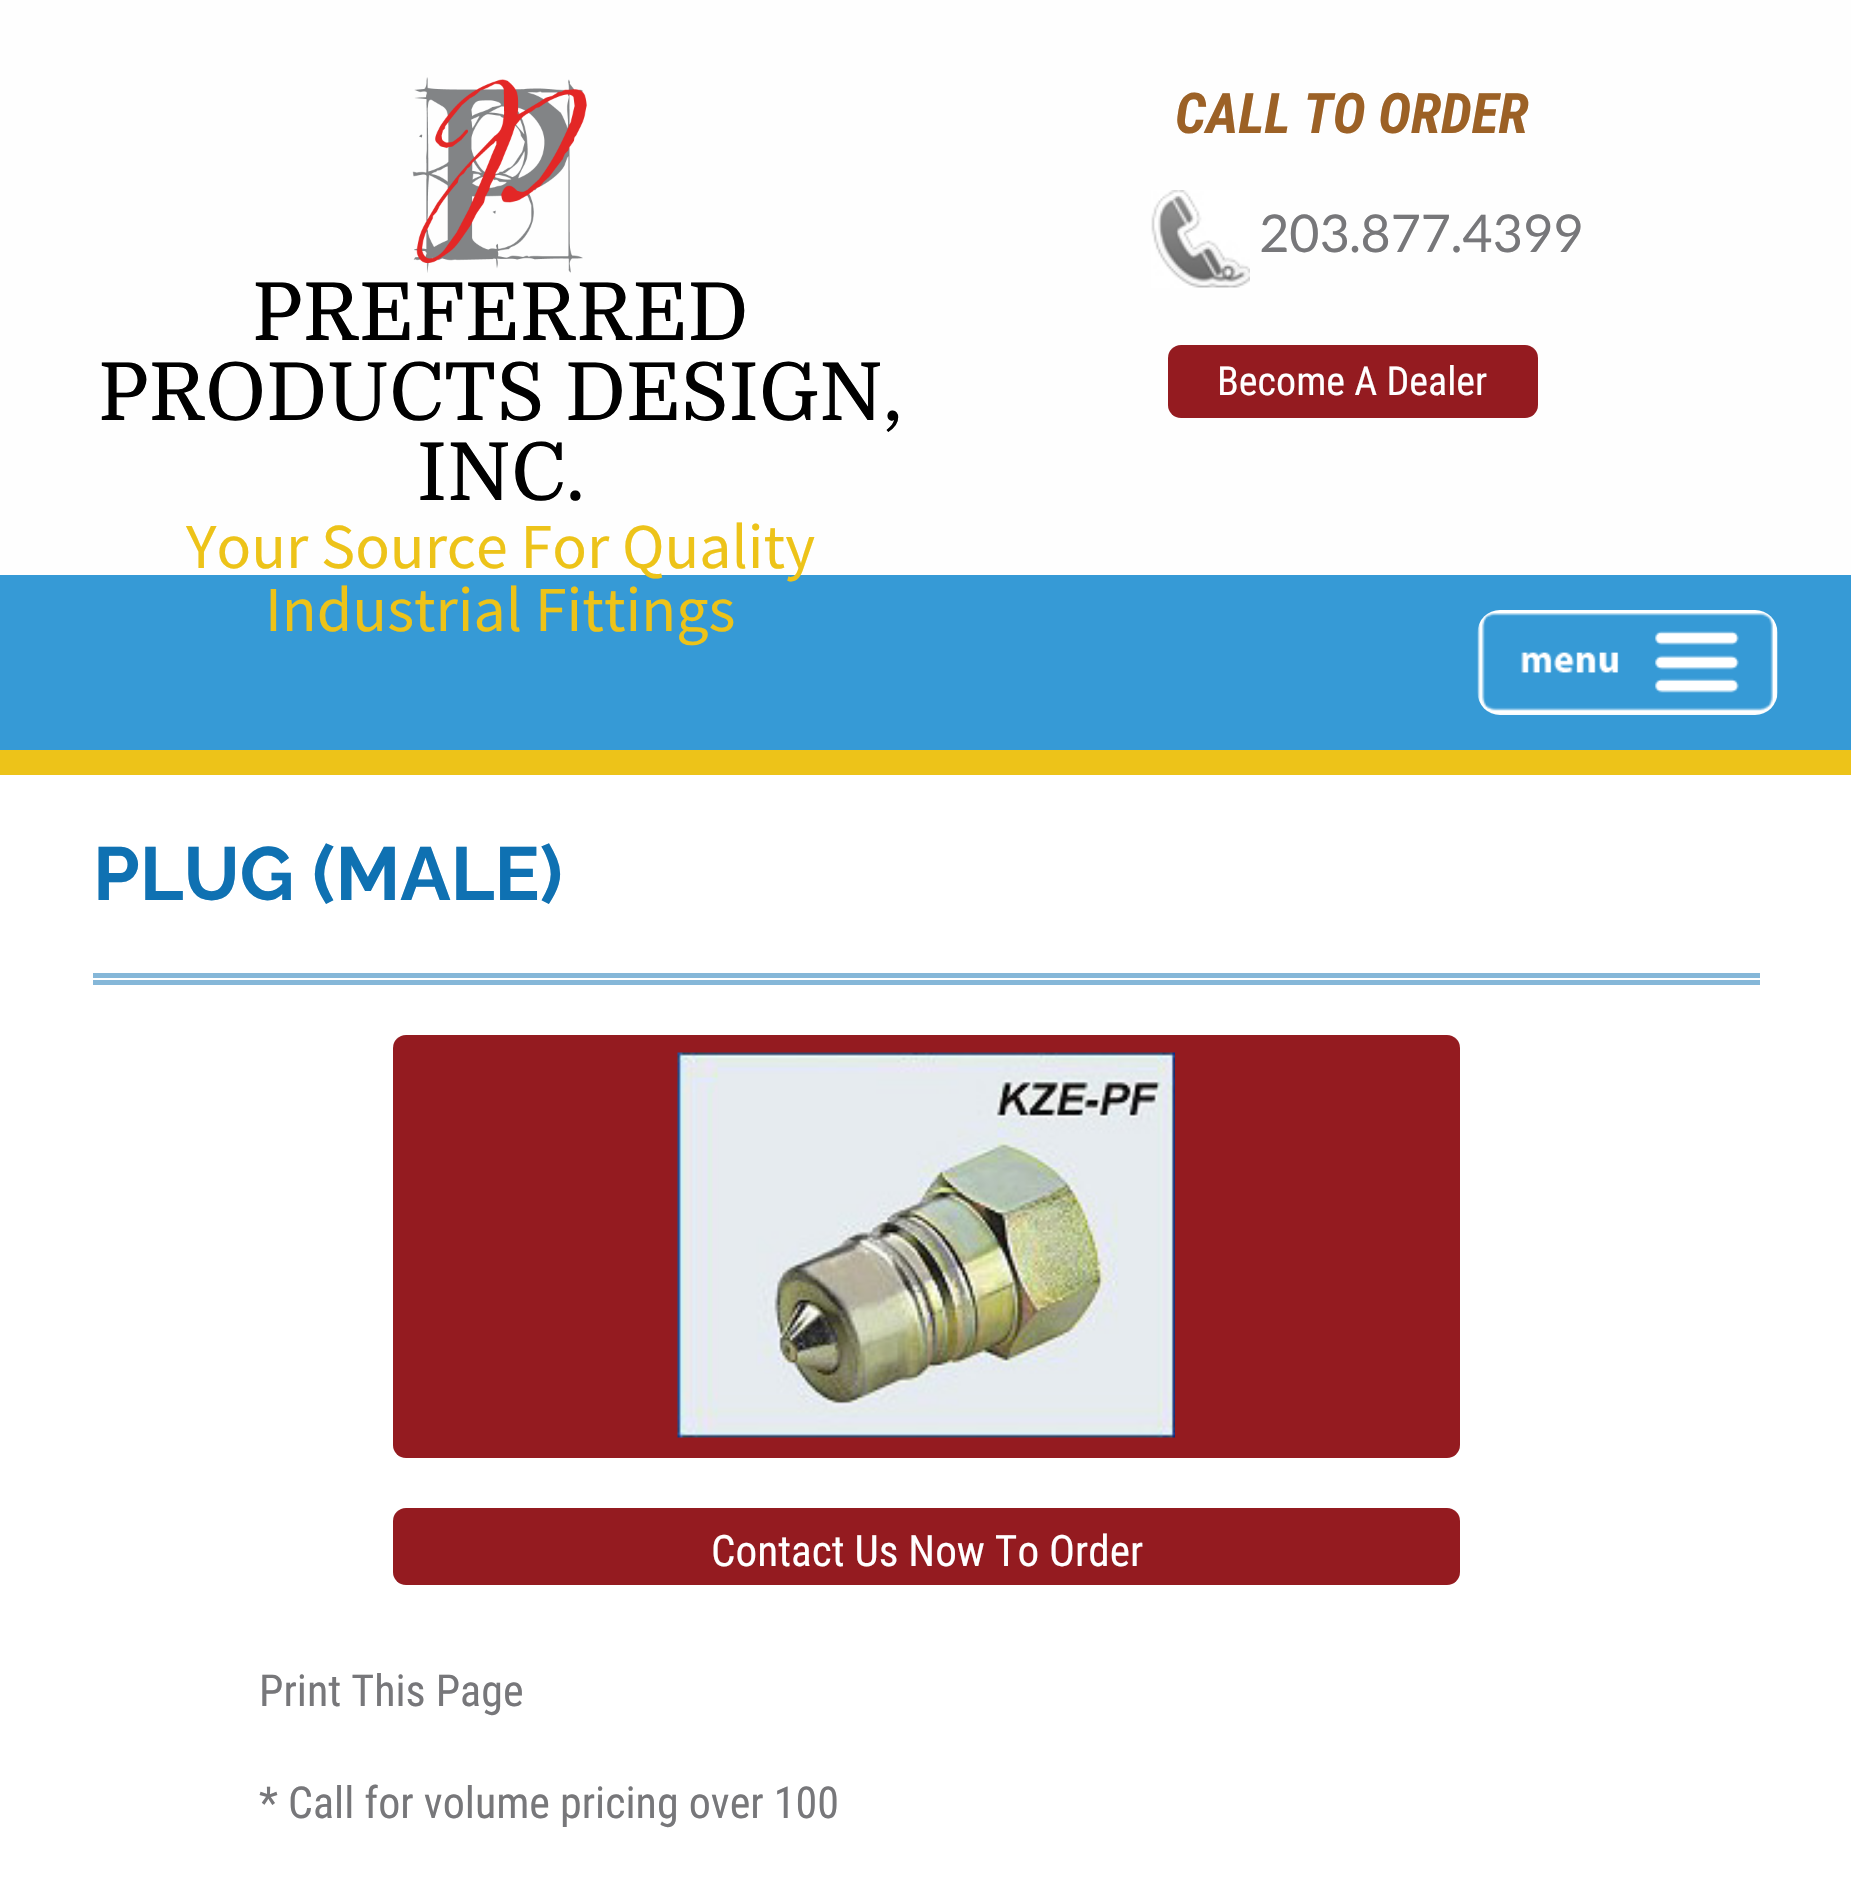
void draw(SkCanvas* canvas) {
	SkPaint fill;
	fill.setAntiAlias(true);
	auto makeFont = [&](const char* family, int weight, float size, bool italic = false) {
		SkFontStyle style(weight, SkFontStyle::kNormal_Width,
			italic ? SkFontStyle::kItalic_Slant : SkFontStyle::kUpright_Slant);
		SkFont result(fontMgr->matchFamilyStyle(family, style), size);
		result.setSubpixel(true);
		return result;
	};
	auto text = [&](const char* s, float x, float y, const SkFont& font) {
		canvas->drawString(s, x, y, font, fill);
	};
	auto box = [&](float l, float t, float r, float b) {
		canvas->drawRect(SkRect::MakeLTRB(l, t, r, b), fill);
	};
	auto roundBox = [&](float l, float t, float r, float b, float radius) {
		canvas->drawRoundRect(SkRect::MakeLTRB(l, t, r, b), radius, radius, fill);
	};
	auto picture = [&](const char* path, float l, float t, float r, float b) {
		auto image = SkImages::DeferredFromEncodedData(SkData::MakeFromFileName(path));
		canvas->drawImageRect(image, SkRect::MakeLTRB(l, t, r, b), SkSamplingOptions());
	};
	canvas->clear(0xFF369AD6);
	fill.setColor(0xFFFEFEFE);
	box(0, 0, 1851, 575);
	picture("image0.png", 1151, 190, 1250, 288);
	fill.setColor(0xFF941B20);
	roundBox(1168, 345, 1538, 418, 13);
	picture("image1.png", 412, 77, 587, 273);
	picture("image2.png", 1477, 610, 1778, 715);
	fill.setColor(0xFFFFFFFF);
	box(0, 775, 1851, 1880);
	fill.setColor(0xFFEDC319);
	box(0, 750, 1851, 775);
	fill.setColor(0xFF85B7D8);
	box(93, 973, 1760, 978);
	box(93, 980, 1760, 985);
	fill.setColor(0xFF941B20);
	roundBox(393, 1035, 1460, 1458, 13);
	picture("image3.png", 677, 1052, 1175, 1438);
	roundBox(393, 1508, 1460, 1585, 13);
	auto font1 = makeFont("Roboto Condensed", 700, 56, true);
	fill.setColor(0xFF9C6126);
	text("CALL TO ORDER", 1175, 133, font1);
	auto font2 = makeFont("Lato", 400, 52);
	fill.setColor(0xFF77777A);
	text("203.877.4399", 1259, 252, font2);
	auto font3 = makeFont("Roboto Condensed", 400, 40);
	fill.setColor(0xFFFFFFFF);
	text("Become A Dealer", 1217, 395, font3);
	auto font4 = makeFont("Domine", 400, 80);
	fill.setColor(0xFF000000);
	text("PREFERRED", 252, 340, font4);
	text("PRODUCTS DESIGN,", 98, 420, font4);
	text("INC.", 417, 500, font4);
	auto font5 = makeFont("Source Sans Pro", 400, 64);
	fill.setColor(0xFFEDC319);
	text("Your Source For Quality", 186, 568, font5);
	text("Industrial Fittings", 265, 631, font5);
	auto font6 = makeFont("Raleway", 700, 75);
	fill.setColor(0xFF0F71B2);
	text("PLUG (MALE)", 93, 900, font6);
	auto font7 = makeFont("Roboto Condensed", 400, 43.25f);
	fill.setColor(0xFFFFFFFF);
	text("Contact Us Now To Order", 711, 1566, font7);
	auto font8 = makeFont("Roboto Condensed", 400, 44);
	fill.setColor(0xFF77777A);
	text("Print This Page", 259, 1706, font8);
	text("* Call for volume pricing over 100", 259, 1818, font8);
}
